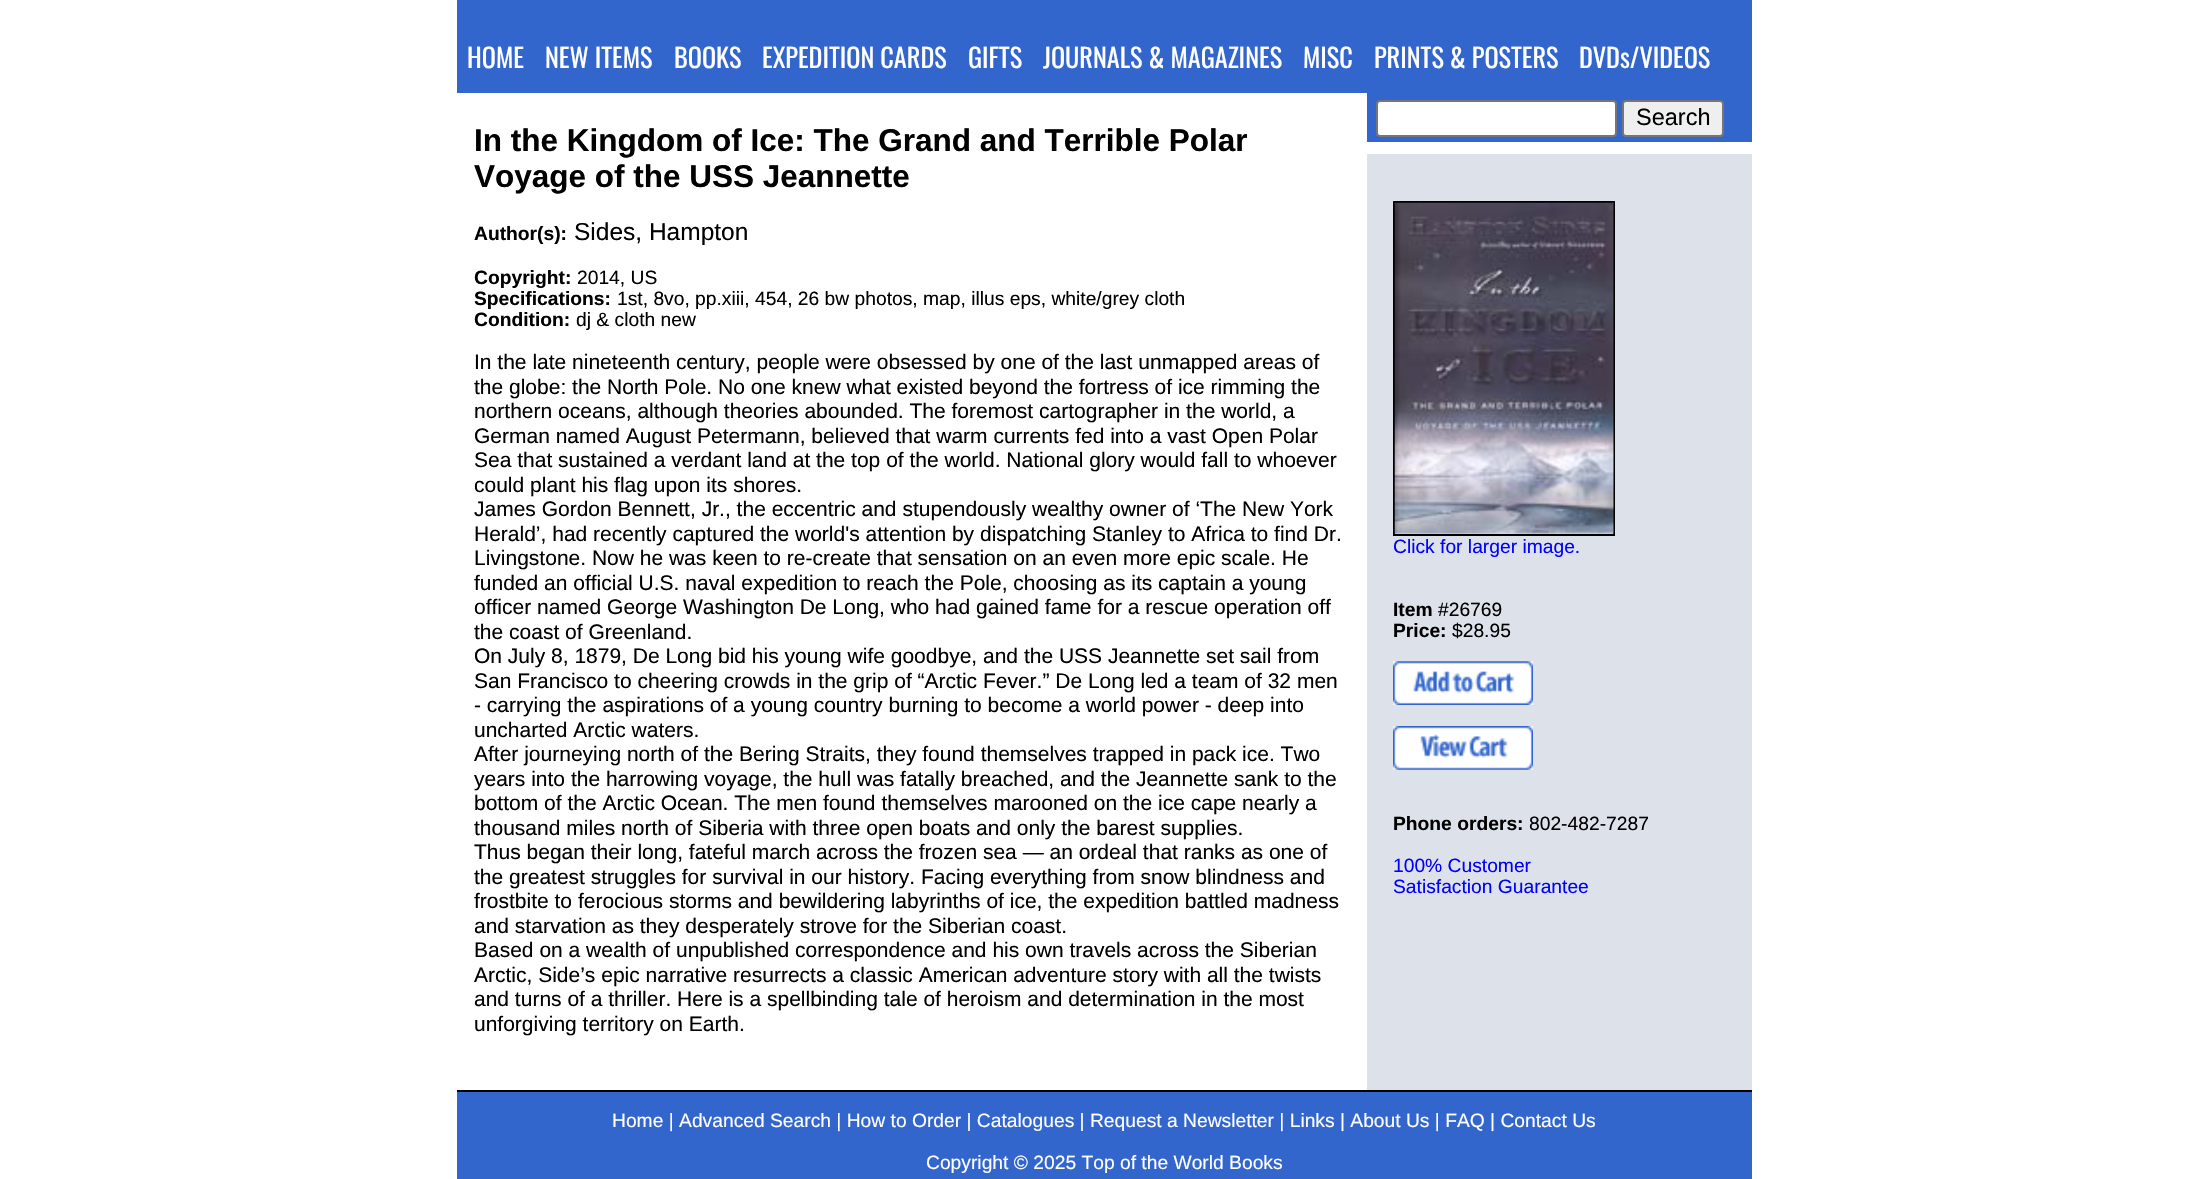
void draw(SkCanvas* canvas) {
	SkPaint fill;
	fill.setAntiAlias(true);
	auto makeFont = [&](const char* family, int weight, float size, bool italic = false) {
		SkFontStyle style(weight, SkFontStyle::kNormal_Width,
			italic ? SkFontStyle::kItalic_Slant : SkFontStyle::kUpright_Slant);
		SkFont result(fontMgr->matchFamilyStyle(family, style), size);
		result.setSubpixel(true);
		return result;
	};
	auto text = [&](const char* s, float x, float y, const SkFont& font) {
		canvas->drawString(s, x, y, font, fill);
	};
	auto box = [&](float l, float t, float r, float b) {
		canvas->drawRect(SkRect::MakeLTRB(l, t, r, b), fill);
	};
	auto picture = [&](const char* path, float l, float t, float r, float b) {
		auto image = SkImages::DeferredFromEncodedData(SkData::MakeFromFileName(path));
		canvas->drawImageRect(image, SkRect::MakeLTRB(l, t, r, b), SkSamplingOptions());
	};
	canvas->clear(0xFFFFFFFF);
	fill.setColor(0xFF3366CC);
	box(457, 0, 1752, 93);
	box(1367, 93, 1752, 142);
	fill.setColor(0xFFFFFFFF);
	canvas->drawRoundRect(SkRect::MakeLTRB(1377, 101, 1616, 136), 3, 3, fill);
	fill.setStyle(SkPaint::kStroke_Style);
	fill.setStrokeWidth(2);
	fill.setColor(0xFF767676);
	canvas->drawRoundRect(SkRect::MakeLTRB(1377, 101, 1616, 136), 3, 3, fill);
	fill.setStyle(SkPaint::kFill_Style);
	fill.setColor(0xFFEFEFEF);
	canvas->drawRoundRect(SkRect::MakeLTRB(1623, 101, 1723, 136), 3, 3, fill);
	fill.setStyle(SkPaint::kStroke_Style);
	fill.setColor(0xFF767676);
	canvas->drawRoundRect(SkRect::MakeLTRB(1623, 101, 1723, 136), 3, 3, fill);
	fill.setStyle(SkPaint::kFill_Style);
	fill.setColor(0xFFDDE1EA);
	box(1367, 154, 1752, 1090);
	fill.setStyle(SkPaint::kStroke_Style);
	fill.setColor(0xFF000000);
	canvas->drawRect(SkRect::MakeLTRB(1394, 202, 1614, 535), fill);
	picture("image0.png", 1394, 202, 1614, 534);
	picture("image1.png", 1393, 661, 1533, 705);
	picture("image2.png", 1393, 726, 1533, 770);
	fill.setStyle(SkPaint::kFill_Style);
	fill.setColor(0xFF3366CC);
	box(457, 1092, 1752, 1179);
	fill.setColor(0xFF000000);
	box(457, 1090, 1752, 1092);
	auto font1 = makeFont("Oswald", 400, 26.25f);
	fill.setColor(0xFFFFFFFF);
	text("HOME", 467, 68, font1);
	text("NEW ITEMS", 545, 68, font1);
	text("BOOKS", 674, 68, font1);
	text("EXPEDITION CARDS", 762, 68, font1);
	text("GIFTS", 968, 68, font1);
	text("JOURNALS & MAGAZINES", 1043, 68, font1);
	text("MISC", 1303, 68, font1);
	text("PRINTS & POSTERS", 1374, 68, font1);
	text("DVDs/VIDEOS", 1579, 68, font1);
	auto font2 = makeFont("Liberation Sans", 400, 23.5f);
	fill.setColor(0xFF000000);
	text("Search", 1636, 125, font2);
	auto font3 = makeFont("Liberation Sans", 700, 31.5f);
	text("In the Kingdom of Ice: The Grand and Terrible Polar", 474, 151, font3);
	text("Voyage of the USS Jeannette", 474, 187, font3);
	auto font4 = makeFont("Liberation Sans", 700, 19.25f);
	text("Author(s):", 474, 240, font4);
	auto font5 = makeFont("Liberation Sans", 400, 24.5f);
	text("Sides, Hampton", 574, 240, font5);
	text("Copyright:", 474, 284, font4);
	auto font6 = makeFont("Liberation Sans", 400, 19.25f);
	text("2014, US", 577, 284, font6);
	text("Specifications:", 474, 305, font4);
	text("1st, 8vo, pp.xiii, 454, 26 bw photos, map, illus eps, white/grey cloth", 617, 305, font6);
	text("Condition:", 474, 326, font4);
	text("dj & cloth new", 576, 326, font6);
	auto font7 = makeFont("Liberation Sans", 400, 21);
	text("In the late nineteenth century, people were obsessed by one of the last unmapped areas of", 474, 369, font7);
	text("the globe: the North Pole. No one knew what existed beyond the fortress of ice rimming the", 474, 394, font7);
	text("northern oceans, although theories abounded. The foremost cartographer in the world, a", 474, 418, font7);
	text("German named August Petermann, believed that warm currents fed into a vast Open Polar", 474, 443, font7);
	text("Sea that sustained a verdant land at the top of the world. National glory would fall to whoever", 474, 467, font7);
	text("could plant his flag upon its shores.", 474, 492, font7);
	text("James Gordon Bennett, Jr., the eccentric and stupendously wealthy owner of ‘The New York", 474, 516, font7);
	text("Herald’, had recently captured the world's attention by dispatching Stanley to Africa to find Dr.", 474, 541, font7);
	text("Livingstone. Now he was keen to re-create that sensation on an even more epic scale. He", 474, 565, font7);
	text("funded an official U.S. naval expedition to reach the Pole, choosing as its captain a young", 474, 590, font7);
	text("officer named George Washington De Long, who had gained fame for a rescue operation off", 474, 614, font7);
	text("the coast of Greenland.", 474, 639, font7);
	text("On July 8, 1879, De Long bid his young wife goodbye, and the USS Jeannette set sail from", 474, 663, font7);
	text("San Francisco to cheering crowds in the grip of “Arctic Fever.” De Long led a team of 32 men", 474, 688, font7);
	text("- carrying the aspirations of a young country burning to become a world power - deep into", 474, 712, font7);
	text("uncharted Arctic waters.", 474, 737, font7);
	text("After journeying north of the Bering Straits, they found themselves trapped in pack ice. Two", 474, 761, font7);
	text("years into the harrowing voyage, the hull was fatally breached, and the Jeannette sank to the", 474, 786, font7);
	text("bottom of the Arctic Ocean. The men found themselves marooned on the ice cape nearly a", 474, 810, font7);
	text("thousand miles north of Siberia with three open boats and only the barest supplies.", 474, 835, font7);
	text("Thus began their long, fateful march across the frozen sea — an ordeal that ranks as one of", 474, 859, font7);
	text("the greatest struggles for survival in our history. Facing everything from snow blindness and", 474, 884, font7);
	text("frostbite to ferocious storms and bewildering labyrinths of ice, the expedition battled madness", 474, 908, font7);
	text("and starvation as they desperately strove for the Siberian coast.", 474, 933, font7);
	text("Based on a wealth of unpublished correspondence and his own travels across the Siberian", 474, 957, font7);
	text("Arctic, Side’s epic narrative resurrects a classic American adventure story with all the twists", 474, 982, font7);
	text("and turns of a thriller. Here is a spellbinding tale of heroism and determination in the most", 474, 1006, font7);
	text("unforgiving territory on Earth.", 474, 1031, font7);
	fill.setColor(0xFF0000FF);
	text("Click for larger image.", 1393, 553, font6);
	fill.setColor(0xFF000000);
	text("Item", 1393, 616, font4);
	text("#26769", 1438, 616, font6);
	text("Price:", 1393, 637, font4);
	text("$28.95", 1452, 637, font6);
	text("Phone orders:", 1393, 830, font4);
	text("802-482-7287", 1529, 830, font6);
	fill.setColor(0xFF0000FF);
	text("100% Customer", 1393, 872, font6);
	text("Satisfaction Guarantee", 1393, 893, font6);
	fill.setColor(0xFFFFFFFF);
	text("Home | Advanced Search | How to Order | Catalogues | Request a Newsletter | Links | About Us | FAQ | Contact Us", 612, 1127, font6);
	text("Copyright © 2025 Top of the World Books", 926, 1169, font6);
}
